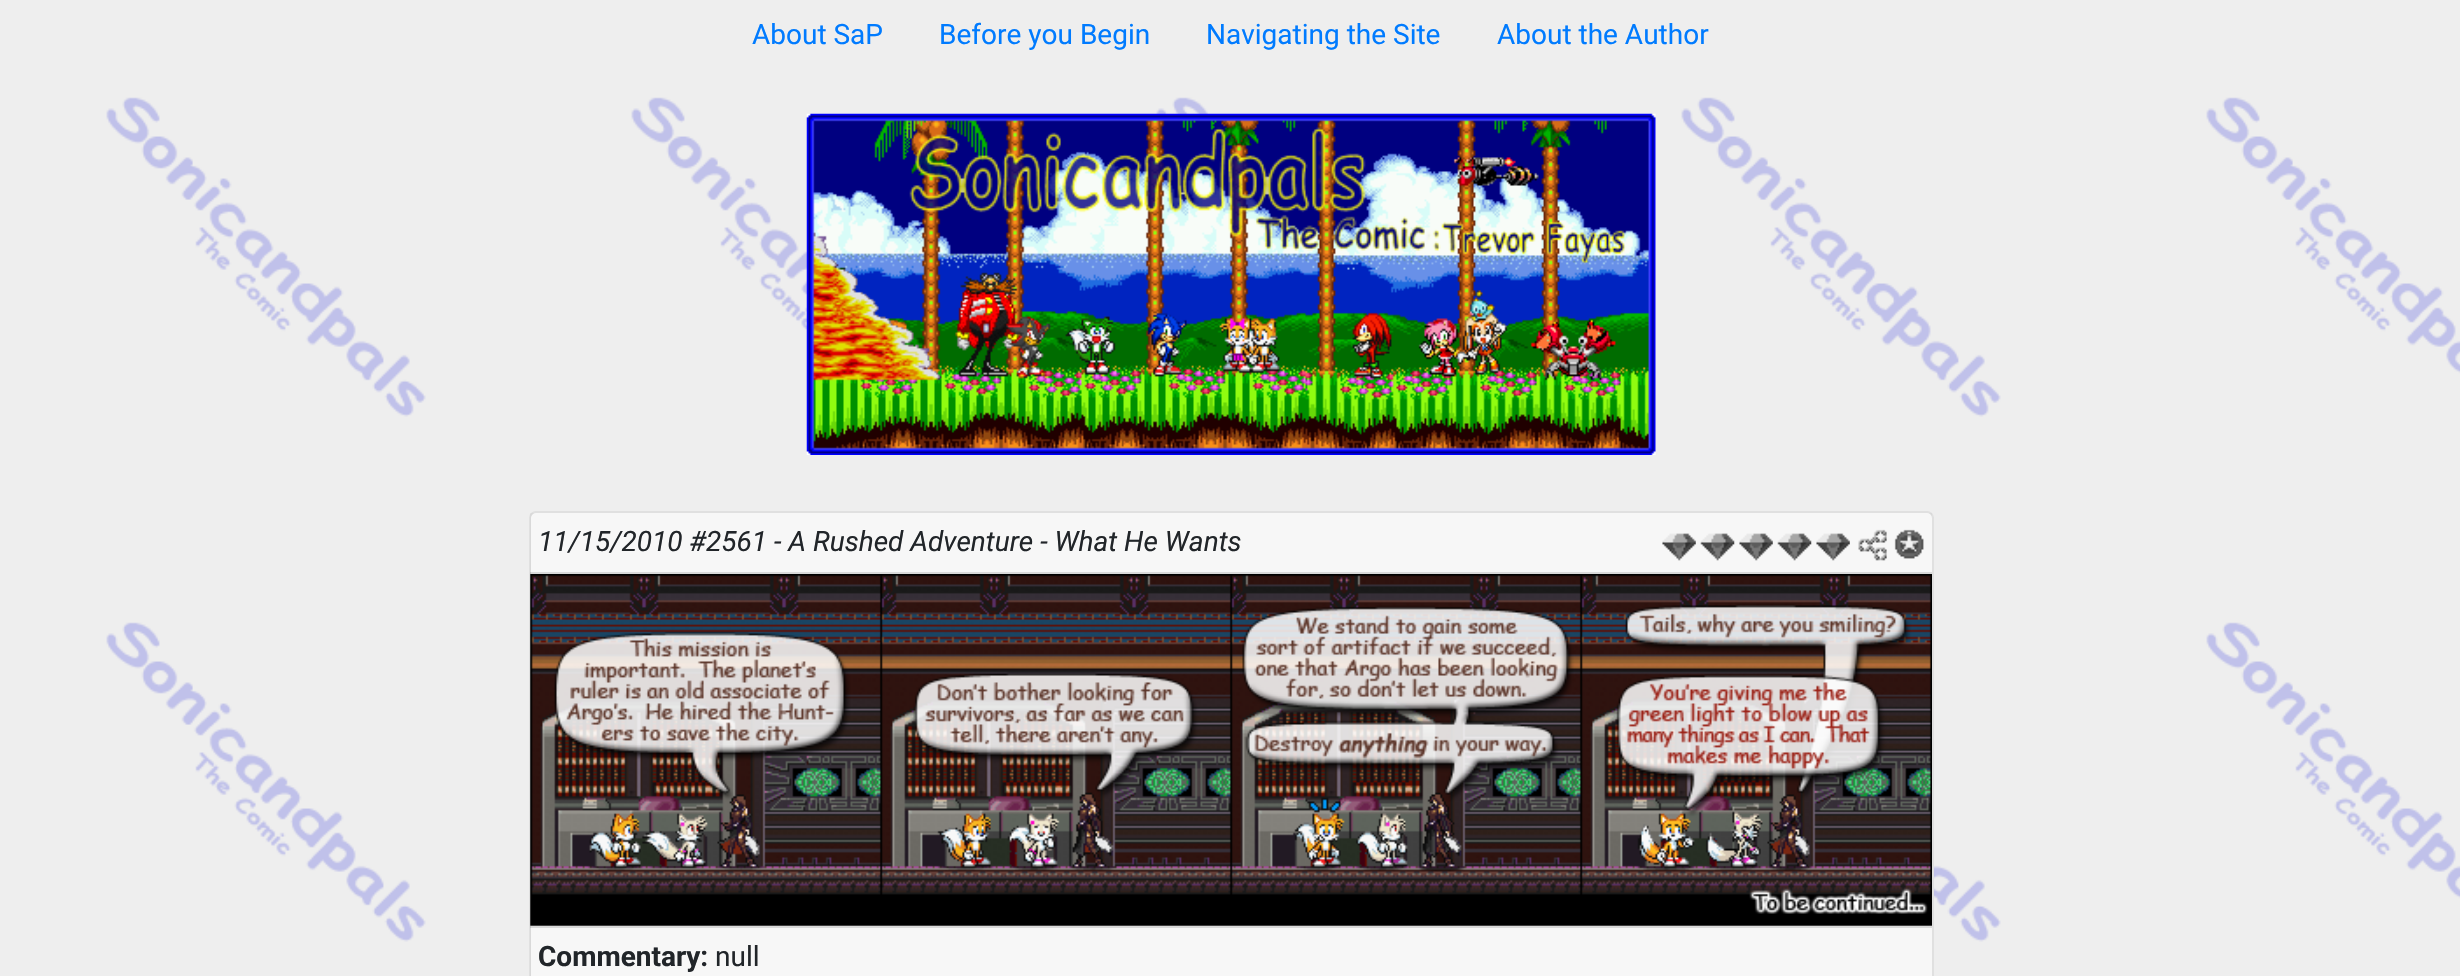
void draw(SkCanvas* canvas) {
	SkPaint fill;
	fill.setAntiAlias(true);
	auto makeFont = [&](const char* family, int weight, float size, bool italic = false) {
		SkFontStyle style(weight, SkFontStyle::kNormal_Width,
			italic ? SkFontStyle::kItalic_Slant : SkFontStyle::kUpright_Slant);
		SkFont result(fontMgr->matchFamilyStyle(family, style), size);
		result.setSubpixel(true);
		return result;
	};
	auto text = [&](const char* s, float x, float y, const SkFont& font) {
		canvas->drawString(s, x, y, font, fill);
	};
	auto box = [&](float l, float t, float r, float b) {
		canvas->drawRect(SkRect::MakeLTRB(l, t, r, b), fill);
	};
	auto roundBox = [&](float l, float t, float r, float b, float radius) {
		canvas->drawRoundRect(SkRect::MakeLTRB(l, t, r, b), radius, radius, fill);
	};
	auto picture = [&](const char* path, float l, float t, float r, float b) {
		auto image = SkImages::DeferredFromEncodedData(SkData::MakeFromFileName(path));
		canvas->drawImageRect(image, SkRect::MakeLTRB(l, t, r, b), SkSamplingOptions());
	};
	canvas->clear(0xFFFFFFFF);
	picture("image0.png", 0, 0, 2460, 976);
	picture("image1.png", 806, 113, 1656, 455);
	fill.setColor(0xFFFFFFFF);
	roundBox(529, 511, 1934, 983, 7);
	fill.setStyle(SkPaint::kStroke_Style);
	fill.setStrokeWidth(2);
	fill.setColor(0x1F000000);
	canvas->drawRoundRect(SkRect::MakeLTRB(530, 512, 1933, 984), 6, 6, fill);
	fill.setStyle(SkPaint::kFill_Style);
	fill.setColor(0x08000000);
	box(530, 513, 1932, 574);
	fill.setColor(0x1F000000);
	box(530, 572, 1932, 574);
	picture("image2.png", 1662, 533, 1696, 561);
	picture("image3.png", 1700, 533, 1735, 561);
	picture("image2.png", 1739, 533, 1773, 561);
	picture("image3.png", 1777, 533, 1812, 561);
	picture("image2.png", 1816, 533, 1850, 561);
	picture("image4.png", 1858, 529, 1887, 561);
	picture("image5.png", 1894, 529, 1924, 559);
	picture("image6.png", 530, 574, 1932, 926);
	fill.setColor(0x08000000);
	box(530, 926, 1932, 976);
	fill.setColor(0x1F000000);
	box(530, 926, 1932, 928);
	auto font1 = makeFont("Roboto", 400, 28);
	fill.setColor(0xFF007BFF);
	text("About SaP", 752, 44, font1);
	text("Before you Begin", 939, 44, font1);
	text("Navigating the Site", 1206, 44, font1);
	text("About the Author", 1497, 44, font1);
	auto font2 = makeFont("Roboto", 400, 28, true);
	fill.setColor(0xFF212529);
	text("11/15/2010 #2561 - A Rushed Adventure - What He Wants", 538, 551, font2);
	auto font3 = makeFont("Roboto", 700, 28);
	text("Commentary:", 538, 966, font3);
	text("null", 715, 966, font1);
}
